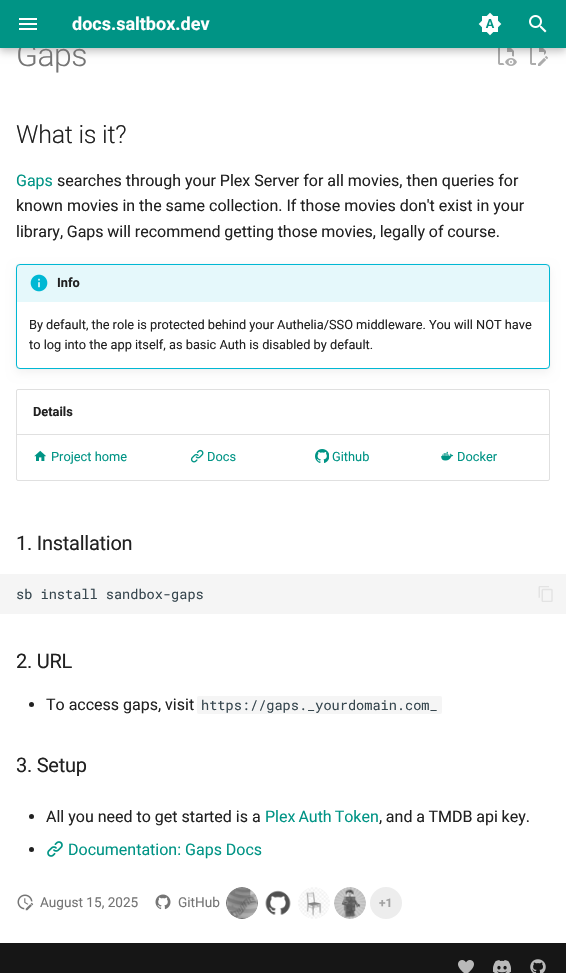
void draw(SkCanvas* canvas) {
	SkPaint fill;
	fill.setAntiAlias(true);
	auto makeFont = [&](const char* family, int weight, float size, bool italic = false) {
		SkFontStyle style(weight, SkFontStyle::kNormal_Width,
			italic ? SkFontStyle::kItalic_Slant : SkFontStyle::kUpright_Slant);
		SkFont result(fontMgr->matchFamilyStyle(family, style), size);
		result.setSubpixel(true);
		return result;
	};
	auto text = [&](const char* s, float x, float y, const SkFont& font) {
		canvas->drawString(s, x, y, font, fill);
	};
	auto spacedText = [&](const char* s, float x, float y, const SkFont& font, const SkPaint& ink, float letter, float word) {
		std::vector<SkGlyphID> glyphs(font.countText(s, strlen(s), SkTextEncoding::kUTF8));
		std::vector<float> xs(glyphs.size());
		font.textToGlyphs(s, strlen(s), SkTextEncoding::kUTF8, glyphs);
		font.getXPos(glyphs, xs, x);
		float extra = 0;
		for (size_t i = 0; i < glyphs.size(); i++) {
			xs[i] += extra;
			extra += letter + word * (glyphs[i] == font.unicharToGlyph(' '));
		}
		canvas->drawTextBlob(SkTextBlob::MakeFromPosHGlyphs(glyphs, xs, y, font), 0, 0, ink);
	};
	auto box = [&](float l, float t, float r, float b) {
		canvas->drawRect(SkRect::MakeLTRB(l, t, r, b), fill);
	};
	auto roundBox = [&](float l, float t, float r, float b, float radius) {
		canvas->drawRoundRect(SkRect::MakeLTRB(l, t, r, b), radius, radius, fill);
	};
	auto picture = [&](const char* path, float l, float t, float r, float b) {
		auto image = SkImages::DeferredFromEncodedData(SkData::MakeFromFileName(path));
		canvas->drawImageRect(image, SkRect::MakeLTRB(l, t, r, b), SkSamplingOptions());
	};
	canvas->clear(0xFFFFFFFF);
	picture("image3.png", 498, 48, 517, 66);
	picture("image4.png", 530, 48, 548, 66);
	fill.setColor(0x33000000);
	fill.setMaskFilter(SkMaskFilter::MakeBlur(kNormal_SkBlurStyle, 4));
	canvas->drawRect(SkRect::MakeLTRB(0, 4, 566, 52), fill);
	fill.setMaskFilter(nullptr);
	fill.setColor(0x1A000000);
	fill.setMaskFilter(SkMaskFilter::MakeBlur(kNormal_SkBlurStyle, 2));
	canvas->drawRect(SkRect::MakeLTRB(0, 0, 566, 48), fill);
	fill.setMaskFilter(nullptr);
	fill.setMaskFilter(SkMaskFilter::MakeBlur(kNormal_SkBlurStyle, 0.5f));
	canvas->drawRoundRect(SkRect::MakeLTRB(16, 264, 550, 369), 4, 4, fill);
	fill.setMaskFilter(nullptr);
	fill.setColor(0x0D000000);
	fill.setMaskFilter(SkMaskFilter::MakeBlur(kNormal_SkBlurStyle, 5));
	canvas->drawRoundRect(SkRect::MakeLTRB(16, 268, 550, 373), 4, 4, fill);
	fill.setMaskFilter(nullptr);
	fill.setColor(0xFFFFFFFF);
	canvas->drawRoundRect(SkRect::MakeLTRB(16.5f, 264.5f, 549.5f, 368.5f), 3.5f, 3.5f, fill);
	fill.setStyle(SkPaint::kStroke_Style);
	fill.setStrokeWidth(1);
	fill.setColor(0xFF00B8D4);
	canvas->drawRoundRect(SkRect::MakeLTRB(16.5f, 264.5f, 549.5f, 368.5f), 3.5f, 3.5f, fill);
	fill.setStyle(SkPaint::kFill_Style);
	fill.setColor(0x1A00B8D4);
	canvas->drawPath(SkPathBuilder().moveTo(19, 265).lineTo(547, 265).cubicTo(548, 265, 549, 266, 549, 267).lineTo(549, 302).lineTo(17, 302).lineTo(17, 267).cubicTo(17, 266, 18, 265, 19, 265).close().detach(), fill);
	picture("image5.png", 30, 274, 48, 292);
	fill.setStyle(SkPaint::kStroke_Style);
	fill.setColor(0xFFE0E0E0);
	canvas->drawRoundRect(SkRect::MakeLTRB(16.5f, 389.5f, 549.5f, 480.5f), 1.5f, 1.5f, fill);
	fill.setStyle(SkPaint::kFill_Style);
	box(17, 434, 549, 435);
	picture("image6.png", 34, 450, 46, 461);
	picture("image7.png", 190, 449, 204, 463);
	picture("image8.png", 315, 449, 329, 463);
	picture("image9.png", 441, 451, 454, 461);
	fill.setColor(0xFFF5F5F5);
	box(0, 574, 566, 614);
	picture("image10.png", 538, 586, 553, 602);
	fill.setColor(0xFF212121);
	canvas->drawCircle(31.5f, 704.5f, 2.5f, fill);
	fill.setColor(0xFFF5F5F5);
	roundBox(197, 696, 442, 714, 2);
	fill.setColor(0xFF212121);
	canvas->drawCircle(31.5f, 816.5f, 2.5f, fill);
	canvas->drawCircle(31.5f, 849.5f, 2.5f, fill);
	picture("image11.png", 47, 841, 63, 857);
	picture("image12.png", 17, 894, 34, 911);
	picture("image13.png", 155, 894, 171, 910);
	picture("image14.png", 226, 887, 258, 919);
	picture("image15.png", 265, 890, 291, 915);
	picture("image16.png", 298, 887, 330, 919);
	picture("image17.png", 334, 887, 366, 919);
	fill.setColor(0xFFEDEDED);
	canvas->drawCircle(386, 903, 16, fill);
	fill.setColor(0xFF161616);
	box(0, 943, 566, 973);
	picture("image18.png", 458, 960, 474, 973);
	picture("image19.png", 493, 960, 511, 973);
	picture("image20.png", 530, 959, 546, 973);
	auto font1 = makeFont("Roboto", 300, 32);
	fill.setColor(0xFF757575);
	spacedText("Gaps", 16, 66, font1, fill, -0.5f, 0);
	fill.setColor(0xFF009485);
	box(0, 0, 566, 48);
	picture("image2.png", 529, 15, 547, 33);
	picture("image1.png", 478, 12, 502, 36);
	picture("image0.png", 19, 18, 37, 30);
	auto font2 = makeFont("Roboto", 700, 18);
	fill.setColor(0xFFFFFFFF);
	text("docs.saltbox.dev", 72, 30, font2);
	auto font3 = makeFont("Roboto", 300, 25);
	fill.setColor(0xFF212121);
	spacedText("What is it?", 16, 143, font3, fill, -0.25f, 0);
	auto font4 = makeFont("Roboto", 400, 16);
	fill.setColor(0xFF009485);
	text("Gaps", 16, 186, font4);
	fill.setColor(0xFF212121);
	text("searches through your Plex Server for all movies, then queries for", 57, 186, font4);
	text("known movies in the same collection. If those movies don't exist in your", 16, 211, font4);
	spacedText("library, Gaps will recommend getting those movies, legally of course.", 16, 237, font4, fill, 0, -0.25f);
	auto font5 = makeFont("Roboto", 700, 12.8f);
	text("Info", 57, 287, font5);
	auto font6 = makeFont("Roboto", 400, 12.8f);
	spacedText("By default, the role is protected behind your Authelia/SSO middleware. You will NOT have", 29, 329, font6, fill, 0, -0.1f);
	text("to log into the app itself, as basic Auth is disabled by default.", 29, 349, font6);
	text("Details", 33, 416, font5);
	fill.setColor(0xFF009485);
	text("Project home", 51, 461, font6);
	text("Docs", 207, 461, font6);
	text("Github", 332, 461, font6);
	text("Docker", 457, 461, font6);
	auto font7 = makeFont("Roboto", 400, 20);
	fill.setColor(0xFF212121);
	spacedText("1. Installation", 16, 550, font7, fill, -0.25f, 0);
	auto font8 = makeFont("Roboto Mono", 400, 13.6f);
	fill.setColor(0xFF36464E);
	text("sb install sandbox-gaps", 16, 599, font8);
	fill.setColor(0xFF212121);
	spacedText("2. URL", 16, 668, font7, fill, -0.25f, 0);
	text("To access gaps, visit", 46, 710, font4);
	fill.setColor(0xFF36464E);
	text("https://gaps._yourdomain.com_", 201, 710, font8);
	fill.setColor(0xFF212121);
	spacedText("3. Setup", 16, 772, font7, fill, -0.25f, 0);
	text("All you need to get started is a", 46, 822, font4);
	fill.setColor(0xFF009485);
	spacedText("Plex Auth Token", 265, 822, font4, fill, 0, -1);
	fill.setColor(0xFF212121);
	spacedText(", and a TMDB api key.", 379, 822, font4, fill, 0, -0.25f);
	fill.setColor(0xFF009485);
	text("Documentation: Gaps Docs", 68, 855, font4);
	auto font9 = makeFont("Roboto", 400, 13.6f);
	fill.setColor(0xFF757575);
	text("August 15, 2025", 40, 907, font9);
	text("GitHub", 178, 907, font9);
	auto font10 = makeFont("Roboto", 700, 12);
	fill.setColor(0xFFA1A1A1);
	text("+1", 379, 907, font10);
}
